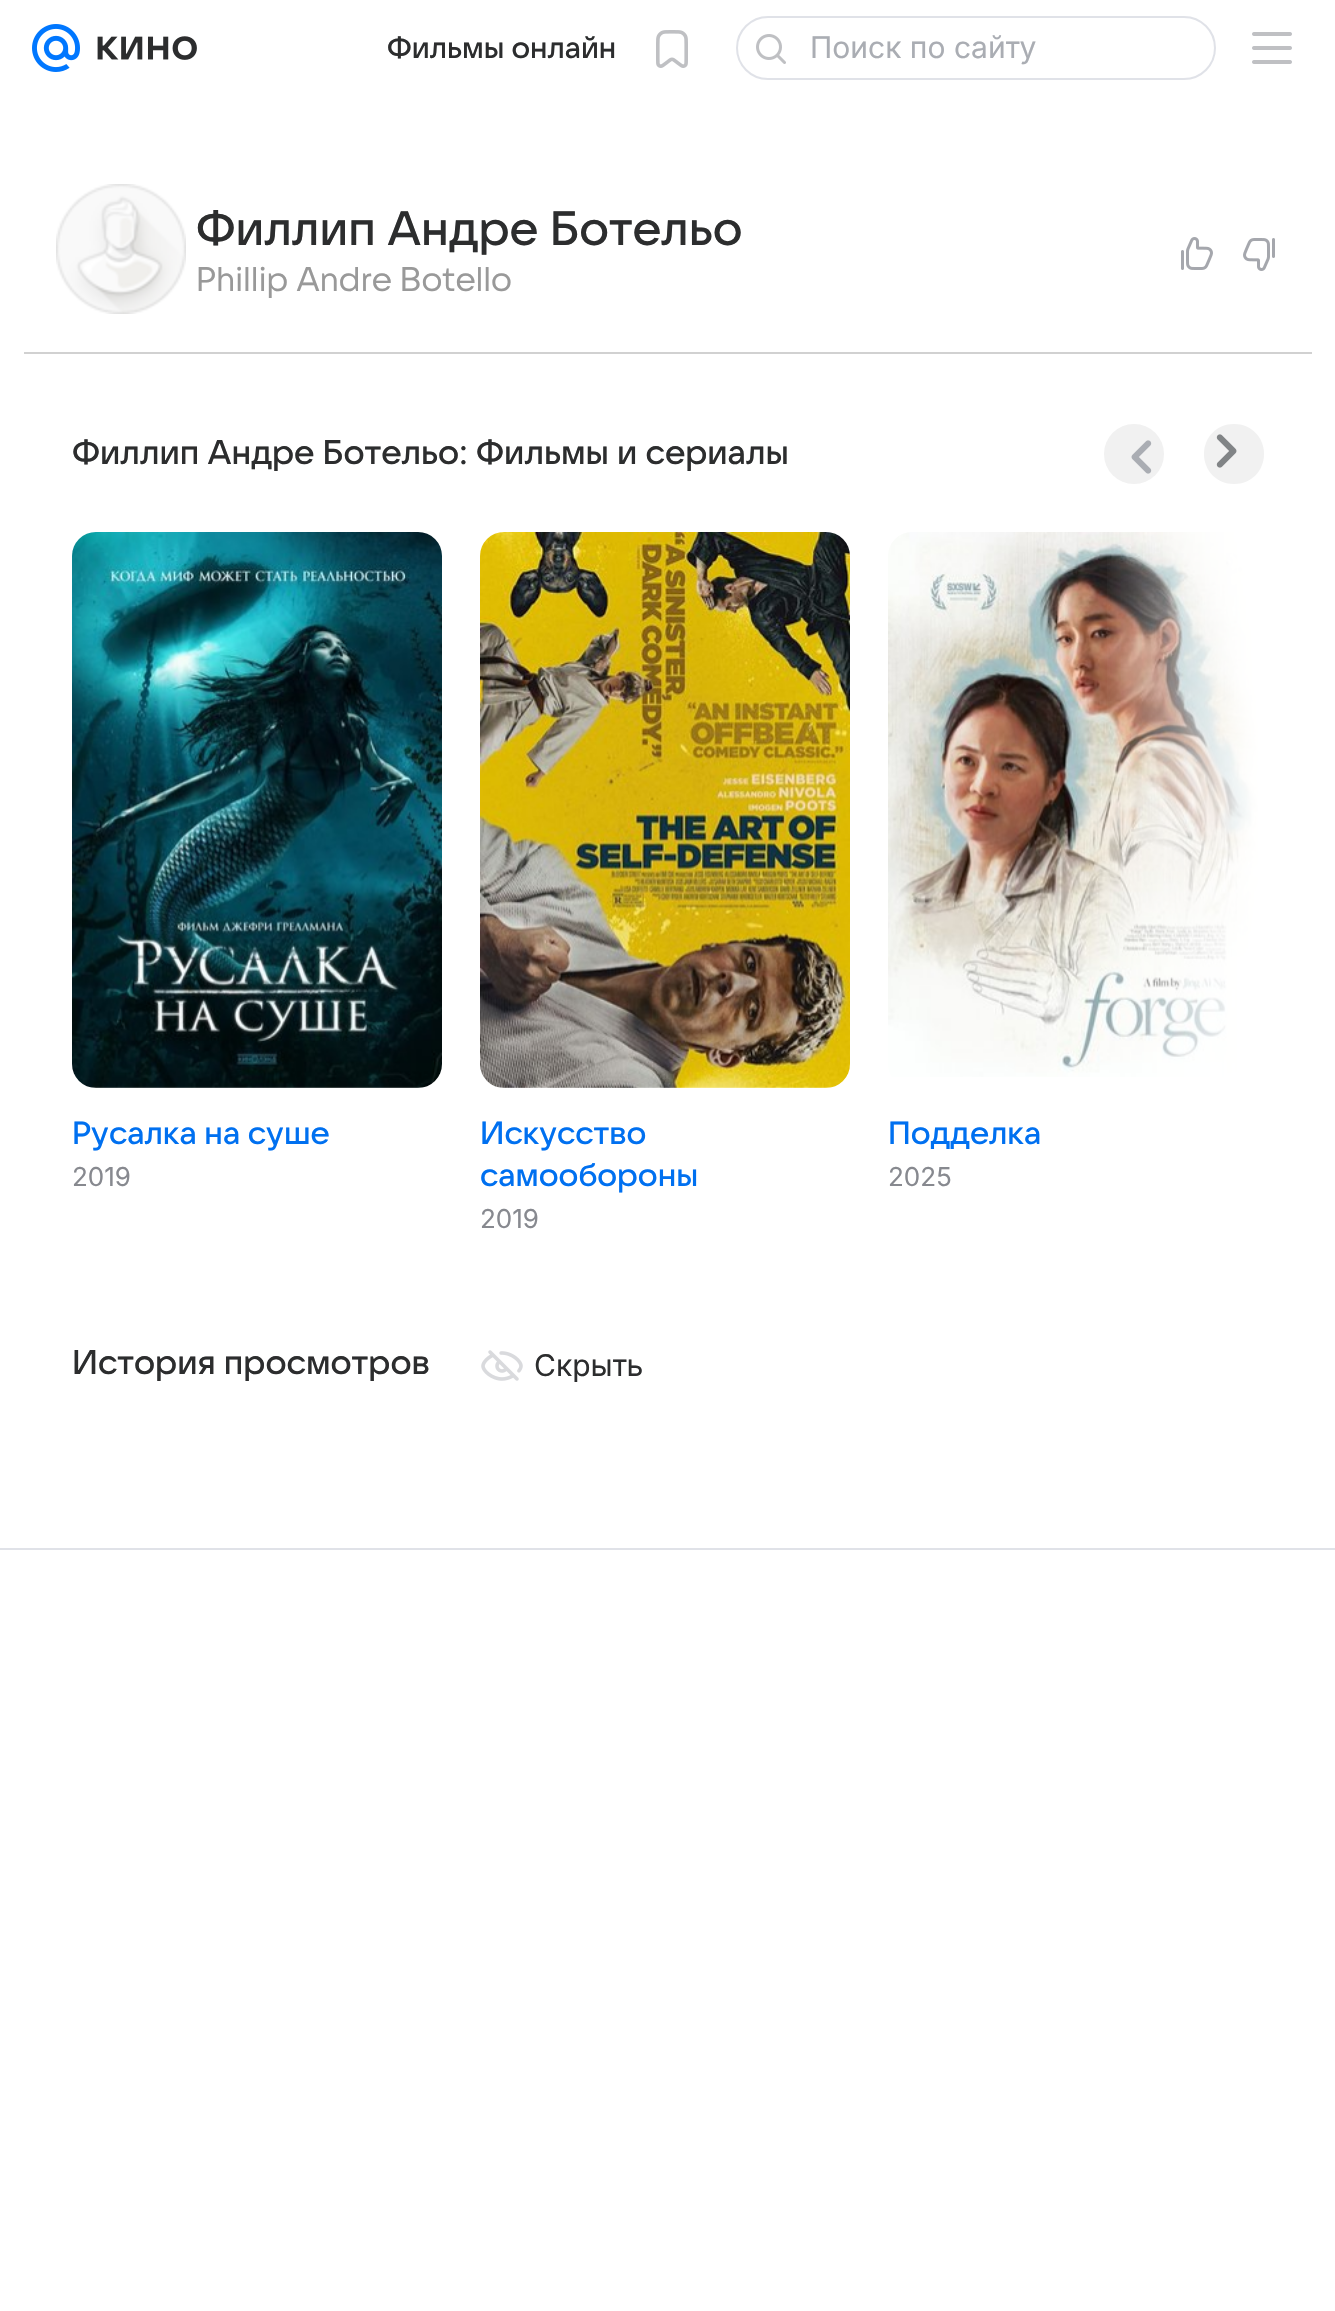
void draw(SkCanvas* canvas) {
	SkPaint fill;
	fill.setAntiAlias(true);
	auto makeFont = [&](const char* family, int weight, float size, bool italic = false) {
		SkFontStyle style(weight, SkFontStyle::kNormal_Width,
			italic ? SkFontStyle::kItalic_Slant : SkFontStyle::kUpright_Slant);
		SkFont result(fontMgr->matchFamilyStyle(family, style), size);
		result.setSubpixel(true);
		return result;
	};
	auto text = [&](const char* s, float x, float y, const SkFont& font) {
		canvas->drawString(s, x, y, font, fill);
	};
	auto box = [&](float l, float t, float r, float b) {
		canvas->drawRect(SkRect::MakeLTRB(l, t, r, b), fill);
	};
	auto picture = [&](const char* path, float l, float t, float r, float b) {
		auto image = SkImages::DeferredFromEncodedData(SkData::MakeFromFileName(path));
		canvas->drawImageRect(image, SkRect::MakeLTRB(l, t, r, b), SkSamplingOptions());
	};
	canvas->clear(0xFFFFFFFF);
	picture("image0.png", 32, 24, 80, 72);
	picture("image1.png", 97, 36, 197, 60);
	picture("image2.png", 656, 30, 688, 68);
	fill.setStyle(SkPaint::kStroke_Style);
	fill.setStrokeWidth(2);
	fill.setColor(0xFFE0E2E8);
	canvas->drawRoundRect(SkRect::MakeLTRB(737, 17, 1215, 79), 31, 31, fill);
	picture("image3.png", 756, 34, 786, 64);
	picture("image4.png", 1252, 32, 1292, 64);
	fill.setStyle(SkPaint::kFill_Style);
	fill.setColor(0xFFD1D1D1);
	box(24, 352, 1312, 354);
	picture("image5.png", 56, 184, 186, 314);
	picture("image6.png", 1181, 237, 1213, 270);
	picture("image7.png", 1243, 238, 1275, 271);
	fill.setColor(0xFFF1F1F1);
	canvas->drawCircle(1134, 454, 30, fill);
	picture("image8.png", 1131, 440, 1152, 474);
	canvas->drawPath(SkPathBuilder().moveTo(1234, 484).cubicTo(1217, 484, 1204, 471, 1204, 454).cubicTo(1204, 437, 1217, 424, 1234, 424).cubicTo(1251, 424, 1264, 437, 1264, 454).cubicTo(1264, 471, 1251, 484, 1234, 484).close().detach(), fill);
	picture("image9.png", 1216, 434, 1237, 468);
	picture("image12.png", 888, 532, 1258, 1077);
	{
		const SkColor colors[] = {0x00FFFFFF, 0xFFFFFFFF};
		const float stops[] = {0, 1};
		const SkPoint ends[] = {{1104, 884}, {1264, 884}};
		fill.setShader(SkGradientShader::MakeLinear(ends, colors, stops, 2, SkTileMode::kClamp));
		fill.setAlpha(255);
	}
	box(1107, 532, 1258, 1077);
	picture("image10.png", 72, 532, 442, 1088);
	picture("image11.png", 480, 532, 850, 1088);
	picture("image13.png", 481, 1350, 523, 1381);
	fill.setShader(nullptr);
	fill.setColor(0xFFE0E2E8);
	box(0, 1548, 1335, 1550);
	auto font1 = makeFont("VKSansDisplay", 500, 30);
	fill.setColor(0xFF2C2D2E);
	text("Фильмы онлайн", 387, 58, font1);
	auto font2 = makeFont("Inter", 400, 30);
	fill.setColor(0xFFAAADB3);
	text("Поиск по сайту", 810, 58, font2);
	auto font3 = makeFont("VKSansDisplay", 500, 48);
	fill.setColor(0xFF2C2D2E);
	text("Филлип Андре Ботельо", 196, 245, font3);
	auto font4 = makeFont("VKSansDisplay", 400, 34);
	fill.setColor(0xFF999999);
	text("Phillip Andre Botello", 196, 291, font4);
	auto font5 = makeFont("VKSansDisplay", 500, 34);
	fill.setColor(0xFF2C2D2E);
	text("Филлип Андре Ботельо: Фильмы и сериалы", 72, 464, font5);
	auto font6 = makeFont("VKSansDisplay", 500, 32);
	fill.setColor(0xFF0070F0);
	text("Русалка на суше", 72, 1144, font6);
	auto font7 = makeFont("Inter", 400, 26);
	fill.setColor(0xFF87898F);
	text("2019", 72, 1186, font7);
	fill.setColor(0xFF0070F0);
	text("Искусство", 480, 1144, font6);
	text("самообороны", 480, 1186, font6);
	fill.setColor(0xFF87898F);
	text("2019", 480, 1228, font7);
	fill.setColor(0xFF0070F0);
	text("Подделка", 888, 1144, font6);
	fill.setColor(0xFF87898F);
	text("2025", 888, 1186, font7);
	fill.setColor(0xFF2C2D2E);
	text("История просмотров", 72, 1374, font5);
	text("Скрыть", 534, 1376, font2);
}
